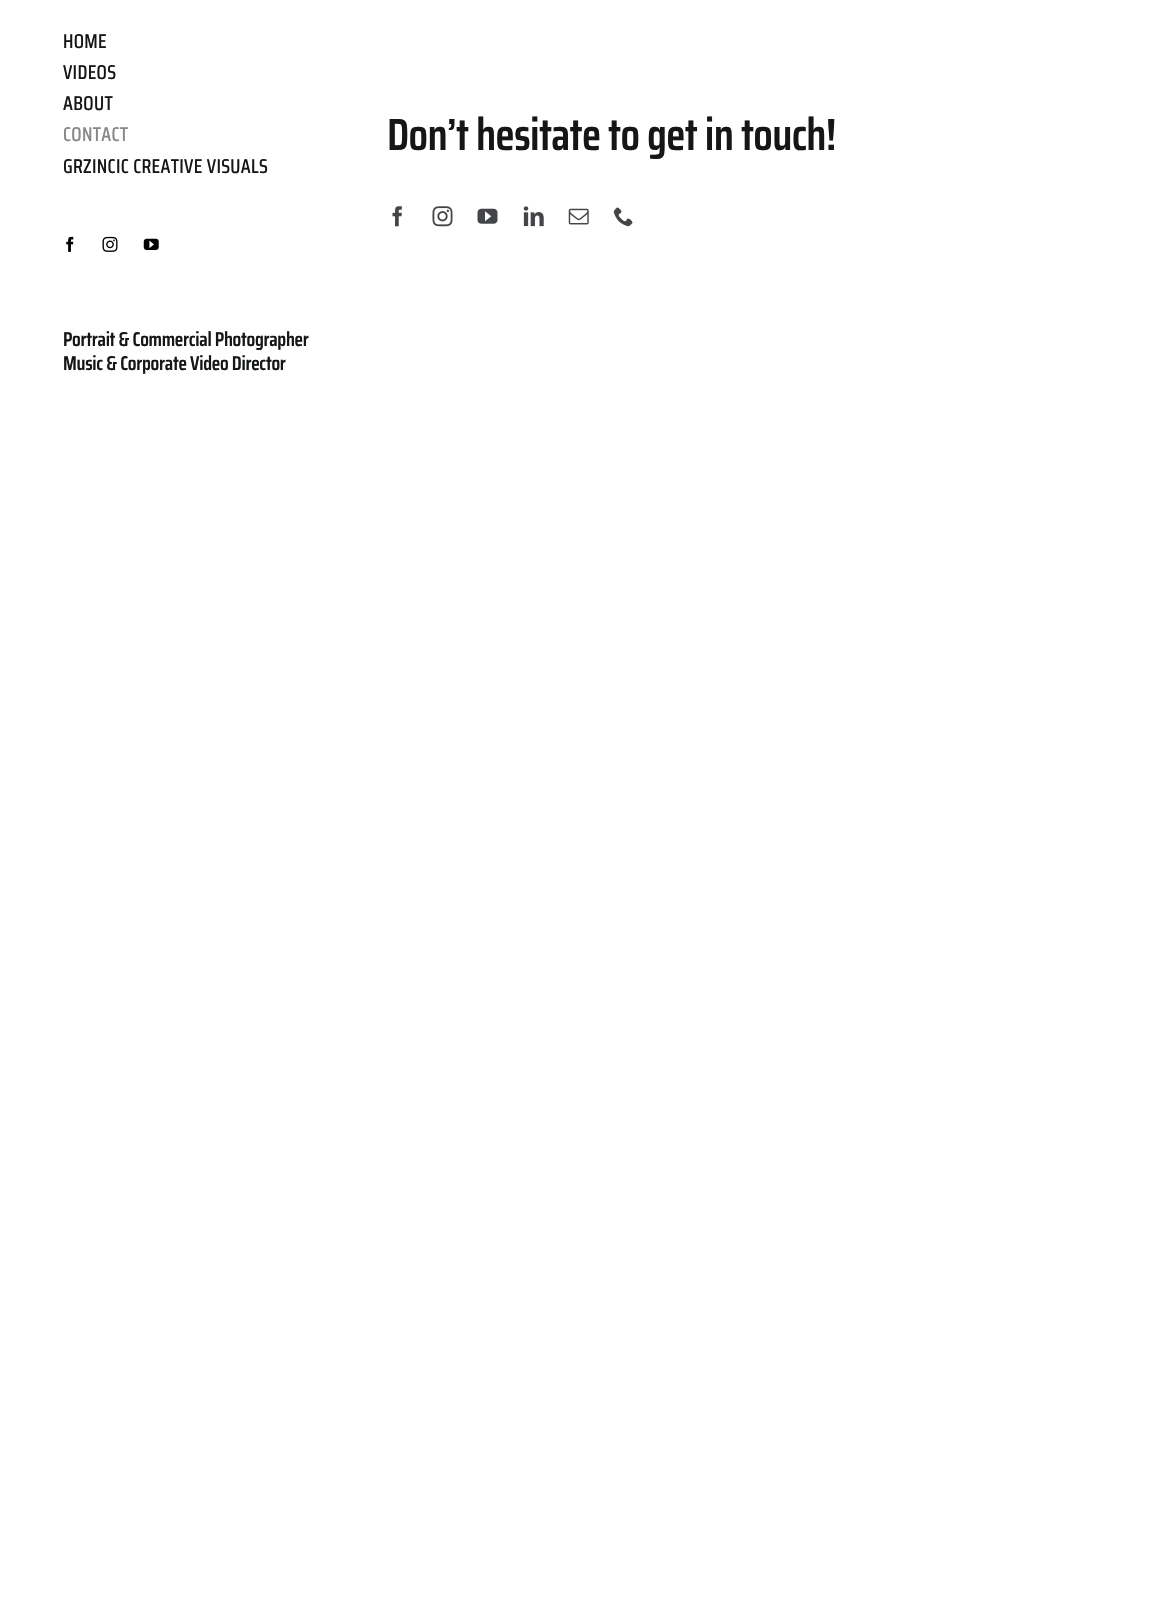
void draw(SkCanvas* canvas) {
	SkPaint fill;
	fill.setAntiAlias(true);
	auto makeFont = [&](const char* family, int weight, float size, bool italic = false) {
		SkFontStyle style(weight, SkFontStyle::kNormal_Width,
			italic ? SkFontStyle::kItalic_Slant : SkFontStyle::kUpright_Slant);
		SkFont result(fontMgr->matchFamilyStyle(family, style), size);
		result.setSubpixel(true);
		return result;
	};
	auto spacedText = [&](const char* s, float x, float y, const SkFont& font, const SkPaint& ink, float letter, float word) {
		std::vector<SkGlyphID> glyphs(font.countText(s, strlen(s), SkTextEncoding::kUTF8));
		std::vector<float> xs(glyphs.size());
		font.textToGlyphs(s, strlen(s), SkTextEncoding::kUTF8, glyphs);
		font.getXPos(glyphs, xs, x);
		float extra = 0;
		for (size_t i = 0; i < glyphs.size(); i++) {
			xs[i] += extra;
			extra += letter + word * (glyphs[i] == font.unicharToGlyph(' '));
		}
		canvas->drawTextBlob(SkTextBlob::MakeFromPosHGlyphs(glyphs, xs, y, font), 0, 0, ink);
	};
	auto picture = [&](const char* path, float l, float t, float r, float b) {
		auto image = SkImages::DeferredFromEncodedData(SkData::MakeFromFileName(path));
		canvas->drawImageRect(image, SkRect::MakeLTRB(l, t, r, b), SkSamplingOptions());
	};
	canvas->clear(0xFFFFFFFF);
	picture("image0.png", 66, 236, 74, 252);
	picture("image1.png", 102, 236, 118, 252);
	picture("image2.png", 143, 238, 159, 250);
	picture("image3.png", 392, 206, 402, 227);
	picture("image4.png", 432, 206, 453, 227);
	picture("image5.png", 477, 208, 498, 224);
	picture("image6.png", 523, 206, 544, 227);
	picture("image7.png", 568, 208, 589, 225);
	picture("image8.png", 613, 207, 633, 227);
	auto font1 = makeFont("Saira Condensed", 500, 20);
	fill.setColor(0xFF141617);
	spacedText("HOME", 63, 48, font1, fill, 0.3f, 0);
	spacedText("VIDEOS", 63, 79, font1, fill, 0.3f, 0);
	spacedText("ABOUT", 63, 110, font1, fill, 0.3f, 0);
	fill.setColor(0xFF878787);
	spacedText("CONTACT", 63, 141, font1, fill, 0.3f, 0);
	fill.setColor(0xFF141617);
	spacedText("GRZINCIC CREATIVE VISUALS", 63, 173, font1, fill, 0.3f, 0);
	auto font2 = makeFont("Saira Condensed", 600, 20);
	spacedText("Portrait & Commercial Photographer", 63, 346, font2, fill, -0.3f, 0);
	spacedText("Music & Corporate Video Director", 63, 370, font2, fill, -0.3f, 0);
	auto font3 = makeFont("Saira Condensed", 600, 45);
	spacedText("Don’t hesitate to get in touch!", 387, 150, font3, fill, -0.7f, 0);
}
